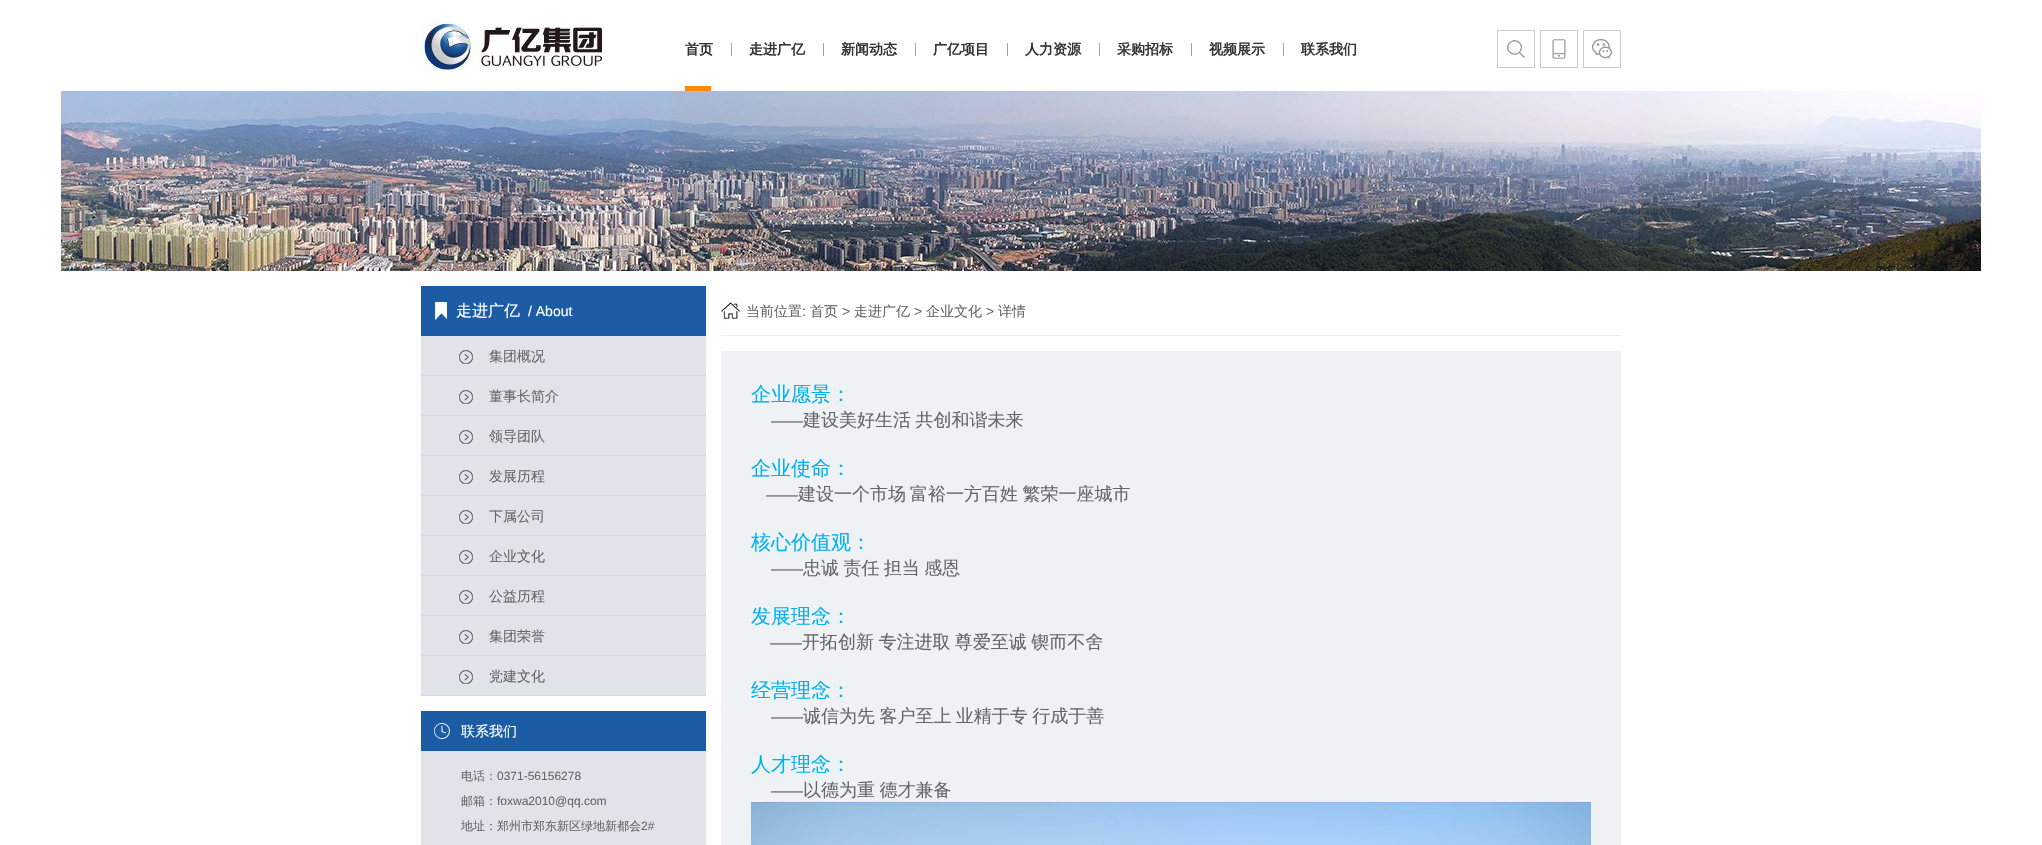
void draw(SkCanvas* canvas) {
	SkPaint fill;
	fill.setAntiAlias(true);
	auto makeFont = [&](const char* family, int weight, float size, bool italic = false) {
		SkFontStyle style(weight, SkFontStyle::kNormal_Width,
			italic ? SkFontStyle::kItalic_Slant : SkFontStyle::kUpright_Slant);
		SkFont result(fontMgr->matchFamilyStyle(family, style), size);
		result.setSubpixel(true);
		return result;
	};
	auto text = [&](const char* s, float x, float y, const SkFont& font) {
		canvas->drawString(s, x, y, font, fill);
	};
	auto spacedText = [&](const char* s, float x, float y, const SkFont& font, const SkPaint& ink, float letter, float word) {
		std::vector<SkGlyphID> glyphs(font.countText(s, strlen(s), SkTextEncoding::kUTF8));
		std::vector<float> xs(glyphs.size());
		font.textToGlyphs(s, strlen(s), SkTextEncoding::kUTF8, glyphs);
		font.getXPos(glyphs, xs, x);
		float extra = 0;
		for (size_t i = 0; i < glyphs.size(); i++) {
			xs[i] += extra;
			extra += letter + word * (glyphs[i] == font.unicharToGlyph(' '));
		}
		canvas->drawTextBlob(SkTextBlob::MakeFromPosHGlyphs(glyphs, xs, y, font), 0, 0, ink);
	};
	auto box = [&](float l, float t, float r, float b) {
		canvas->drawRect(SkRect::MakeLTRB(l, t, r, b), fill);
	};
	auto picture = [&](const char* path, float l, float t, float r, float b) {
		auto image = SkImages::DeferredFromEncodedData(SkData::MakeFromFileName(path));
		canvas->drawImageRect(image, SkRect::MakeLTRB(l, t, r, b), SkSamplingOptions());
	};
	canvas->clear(0xFFFFFFFF);
	picture("image0.png", 421, 12, 605, 76);
	fill.setColor(0xFFA1A1A1);
	box(731, 43, 732, 56);
	box(823, 43, 824, 56);
	box(915, 43, 916, 56);
	box(1007, 43, 1008, 56);
	box(1099, 43, 1100, 56);
	box(1191, 43, 1192, 56);
	box(1283, 43, 1284, 56);
	fill.setColor(0xFFFF8A00);
	box(685, 86, 711, 91);
	picture("image1.png", 1507, 40, 1525, 58);
	fill.setStyle(SkPaint::kStroke_Style);
	fill.setStrokeWidth(1);
	fill.setColor(0xFFCCCCCC);
	canvas->drawRect(SkRect::MakeLTRB(1497.5f, 30.5f, 1534.5f, 67.5f), fill);
	picture("image2.png", 1552, 39, 1566, 59);
	canvas->drawRect(SkRect::MakeLTRB(1540.5f, 30.5f, 1577.5f, 67.5f), fill);
	picture("image3.png", 1592, 39, 1612, 59);
	canvas->drawRect(SkRect::MakeLTRB(1583.5f, 30.5f, 1620.5f, 67.5f), fill);
	picture("image4.png", 61, 91, 1981, 271);
	fill.setStyle(SkPaint::kFill_Style);
	fill.setColor(0xFF1C5CA5);
	box(421, 286, 706, 336);
	picture("image5.png", 435, 302, 447, 320);
	fill.setColor(0xFFE1E3EB);
	box(421, 336, 706, 375);
	picture("image6.png", 459, 350, 473, 364);
	fill.setColor(0xFFD3D8E6);
	box(421, 375, 706, 376);
	fill.setColor(0xFFE1E3EB);
	box(421, 376, 706, 415);
	picture("image6.png", 459, 390, 473, 404);
	fill.setColor(0xFFD3D8E6);
	box(421, 415, 706, 416);
	fill.setColor(0xFFE1E3EB);
	box(421, 416, 706, 455);
	picture("image6.png", 459, 430, 473, 444);
	fill.setColor(0xFFD3D8E6);
	box(421, 455, 706, 456);
	fill.setColor(0xFFE1E3EB);
	box(421, 456, 706, 495);
	picture("image6.png", 459, 470, 473, 484);
	fill.setColor(0xFFD3D8E6);
	box(421, 495, 706, 496);
	fill.setColor(0xFFE1E3EB);
	box(421, 496, 706, 535);
	picture("image6.png", 459, 510, 473, 524);
	fill.setColor(0xFFD3D8E6);
	box(421, 535, 706, 536);
	fill.setColor(0xFFE1E3EB);
	box(421, 536, 706, 575);
	picture("image6.png", 459, 550, 473, 564);
	fill.setColor(0xFFD3D8E6);
	box(421, 575, 706, 576);
	fill.setColor(0xFFE1E3EB);
	box(421, 576, 706, 615);
	picture("image6.png", 459, 590, 473, 604);
	fill.setColor(0xFFD3D8E6);
	box(421, 615, 706, 616);
	fill.setColor(0xFFE1E3EB);
	box(421, 616, 706, 655);
	picture("image6.png", 459, 630, 473, 644);
	fill.setColor(0xFFD3D8E6);
	box(421, 655, 706, 656);
	fill.setColor(0xFFE1E3EB);
	box(421, 656, 706, 695);
	picture("image6.png", 459, 670, 473, 684);
	fill.setColor(0xFFD3D8E6);
	box(421, 695, 706, 696);
	fill.setColor(0xFFE1E3EB);
	box(421, 751, 706, 845);
	fill.setColor(0xFF1C5CA5);
	box(421, 711, 706, 751);
	picture("image7.png", 434, 723, 450, 739);
	picture("image8.png", 721, 302, 740, 319);
	fill.setColor(0xFFEEEEEE);
	box(721, 335, 1621, 336);
	fill.setColor(0xFFEFF2F5);
	box(721, 351, 1621, 845);
	picture("image9.png", 751, 802, 1591, 845);
	auto font1 = makeFont("WenQuanYi Zen Hei", 700, 14);
	fill.setColor(0xFF333333);
	text("首页", 685, 54, font1);
	text("走进广亿", 749, 54, font1);
	text("新闻动态", 841, 54, font1);
	text("广亿项目", 933, 54, font1);
	text("人力资源", 1025, 54, font1);
	text("采购招标", 1117, 54, font1);
	text("视频展示", 1209, 54, font1);
	text("联系我们", 1301, 54, font1);
	auto font2 = makeFont("WenQuanYi Zen Hei", 500, 16);
	fill.setColor(0xFFFFFFFF);
	text("走进广亿", 456, 316, font2);
	auto font3 = makeFont("Liberation Sans", 400, 14);
	text("/ About", 528, 316, font3);
	auto font4 = makeFont("WenQuanYi Zen Hei", 500, 14);
	fill.setColor(0xFF666666);
	text("集团概况", 489, 361, font4);
	text("董事长简介", 489, 401, font4);
	text("领导团队", 489, 441, font4);
	text("发展历程", 489, 481, font4);
	text("下属公司", 489, 521, font4);
	text("企业文化", 489, 561, font4);
	text("公益历程", 489, 601, font4);
	text("集团荣誉", 489, 641, font4);
	text("党建文化", 489, 681, font4);
	fill.setColor(0xFFFFFFFF);
	text("联系我们", 461, 736, font4);
	auto font5 = makeFont("WenQuanYi Zen Hei", 500, 12);
	fill.setColor(0xFF666666);
	text("电话：", 461, 780, font5);
	auto font6 = makeFont("Liberation Sans", 400, 12);
	text("0371-56156278", 497, 780, font6);
	text("邮箱：", 461, 805, font5);
	text("foxwa2010@qq.com", 497, 805, font6);
	text("地址：郑州市郑东新区绿地新都会", 461, 830, font5);
	text("2#", 641, 830, font6);
	text("当前位置", 746, 316, font4);
	text(":", 802, 316, font3);
	text("首页", 810, 316, font4);
	text(">", 842, 316, font3);
	text("走进广亿", 854, 316, font4);
	text(">", 914, 316, font3);
	text("企业文化", 926, 316, font4);
	text(">", 986, 316, font3);
	text("详情", 998, 316, font4);
	auto font7 = makeFont("WenQuanYi Zen Hei", 500, 20);
	fill.setColor(0xFF00B0F0);
	text("企业愿景：", 751, 401, font7);
	auto font8 = makeFont("Liberation Sans", 400, 16);
	fill.setColor(0xFF666666);
	text("——", 771, 426, font8);
	auto font9 = makeFont("WenQuanYi Zen Hei", 500, 18);
	spacedText("建设美好生活 共创和谐未来", 803, 426, font9, fill, 0, -1);
	fill.setColor(0xFF00B0F0);
	text("企业使命：", 751, 475, font7);
	fill.setColor(0xFF666666);
	text("——", 766, 500, font8);
	text("建设一个市场", 798, 500, font9);
	spacedText("富裕一方百姓 繁荣一座城市", 910, 500, font9, fill, 0, -1);
	fill.setColor(0xFF00B0F0);
	text("核心价值观：", 751, 549, font7);
	fill.setColor(0xFF666666);
	text("——", 771, 574, font8);
	spacedText("忠诚 责任 担当 感恩", 803, 574, font9, fill, 0, -1);
	fill.setColor(0xFF00B0F0);
	text("发展理念：", 751, 623, font7);
	fill.setColor(0xFF666666);
	text("——", 770, 648, font8);
	spacedText("开拓创新 专注进取 尊爱至诚 锲而不舍", 802, 648, font9, fill, 0, -1);
	fill.setColor(0xFF00B0F0);
	text("经营理念：", 751, 697, font7);
	fill.setColor(0xFF666666);
	text("——", 771, 722, font8);
	spacedText("诚信为先 客户至上 业精于专 行成于善", 803, 722, font9, fill, 0, -1);
	fill.setColor(0xFF00B0F0);
	text("人才理念：", 751, 771, font7);
	fill.setColor(0xFF666666);
	text("——", 771, 796, font8);
	spacedText("以德为重 德才兼备", 803, 796, font9, fill, 0, -1);
}
